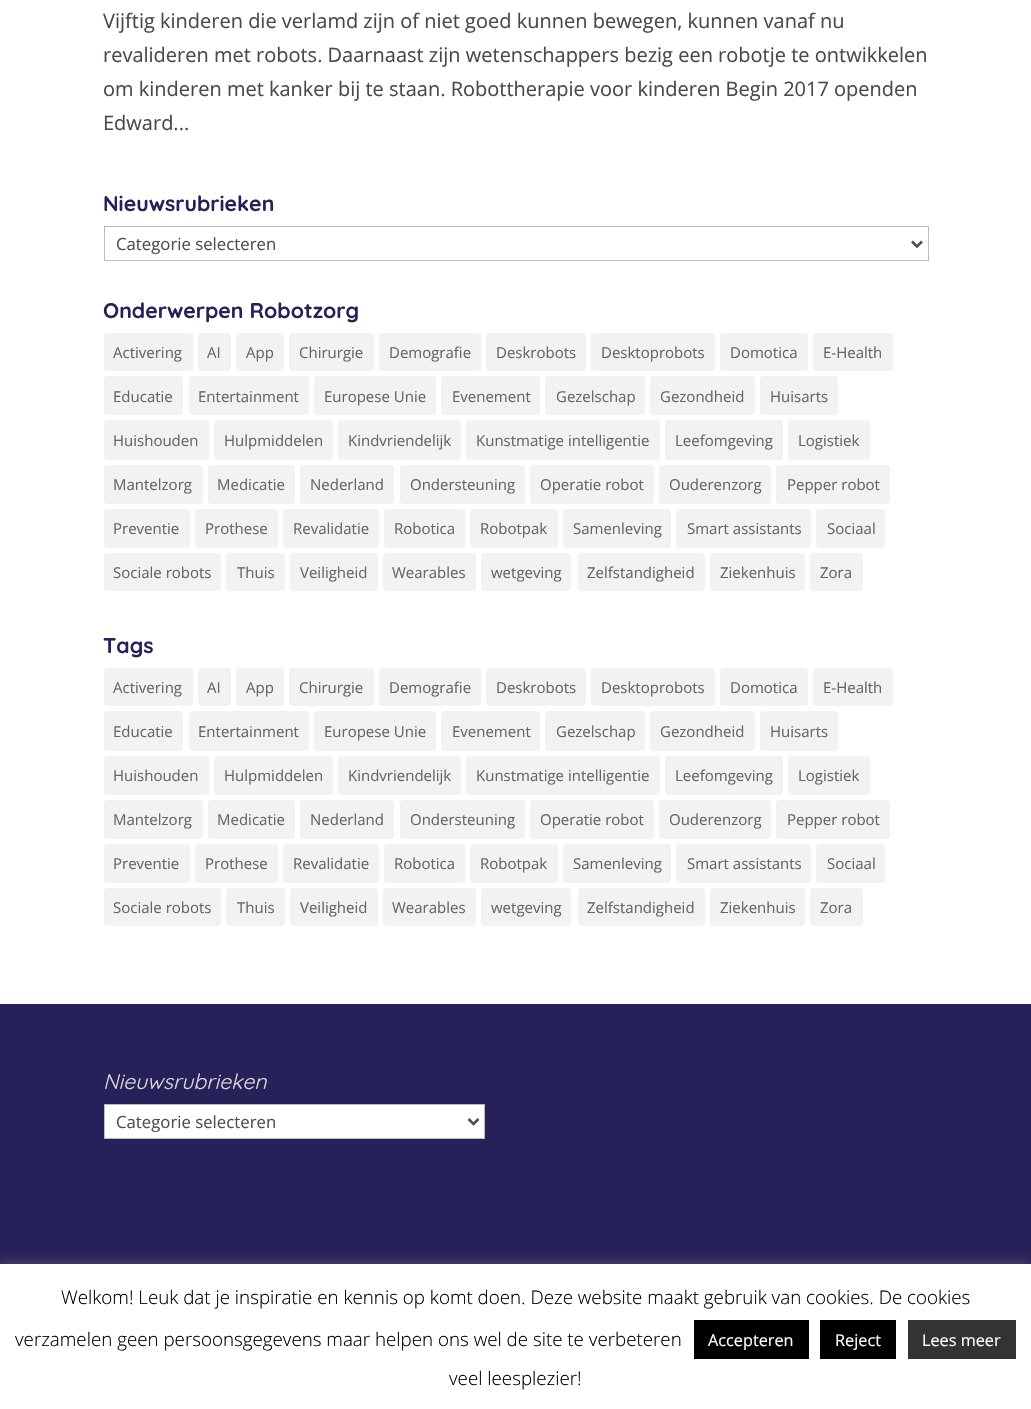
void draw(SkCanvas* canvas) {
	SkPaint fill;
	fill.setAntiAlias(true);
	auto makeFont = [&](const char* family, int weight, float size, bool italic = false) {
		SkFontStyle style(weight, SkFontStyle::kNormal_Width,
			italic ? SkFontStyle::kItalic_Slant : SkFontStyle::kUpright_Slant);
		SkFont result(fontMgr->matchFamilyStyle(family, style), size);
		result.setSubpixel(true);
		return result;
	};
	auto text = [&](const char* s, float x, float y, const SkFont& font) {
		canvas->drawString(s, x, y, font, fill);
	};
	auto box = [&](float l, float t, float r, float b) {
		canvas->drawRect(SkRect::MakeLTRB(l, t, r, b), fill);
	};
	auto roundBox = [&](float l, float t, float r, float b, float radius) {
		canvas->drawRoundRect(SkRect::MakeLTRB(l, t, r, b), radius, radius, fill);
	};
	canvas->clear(0xFFFFFFFF);
	fill.setStyle(SkPaint::kStroke_Style);
	fill.setStrokeWidth(1);
	fill.setColor(0xFFBBBBBB);
	canvas->drawRect(SkRect::MakeLTRB(104.5f, 226.5f, 928.5f, 260.5f), fill);
	fill.setStrokeWidth(2.5f);
	fill.setColor(0xFF4E4E4E);
	canvas->drawPath(SkPathBuilder().moveTo(912, 241.5f).lineTo(917, 246.5f).lineTo(922, 241.5f).detach(), fill);
	fill.setStyle(SkPaint::kFill_Style);
	fill.setColor(0xFFF2F2F2);
	roundBox(104, 333, 193, 371, 4);
	roundBox(198, 333, 231, 371, 4);
	roundBox(236, 333, 284, 371, 4);
	roundBox(289, 333, 374, 371, 4);
	roundBox(379, 333, 481, 371, 4);
	roundBox(486, 333, 586, 371, 4);
	roundBox(591, 333, 715, 371, 4);
	roundBox(720, 333, 808, 371, 4);
	roundBox(813, 333, 893, 371, 4);
	roundBox(104, 376, 183, 415, 4);
	roundBox(189, 376, 309, 415, 4);
	roundBox(314, 376, 436, 415, 4);
	roundBox(441, 376, 540, 415, 4);
	roundBox(545, 376, 645, 415, 4);
	roundBox(650, 376, 755, 415, 4);
	roundBox(760, 376, 838, 415, 4);
	roundBox(104, 420, 209, 460, 4);
	roundBox(214, 420, 333, 460, 4);
	roundBox(338, 420, 461, 460, 4);
	roundBox(466, 420, 660, 460, 4);
	roundBox(665, 420, 783, 460, 4);
	roundBox(788, 420, 870, 460, 4);
	roundBox(104, 465, 203, 504, 4);
	roundBox(208, 465, 295, 504, 4);
	roundBox(300, 465, 394, 504, 4);
	roundBox(400, 465, 525, 504, 4);
	roundBox(530, 465, 654, 504, 4);
	roundBox(659, 465, 771, 504, 4);
	roundBox(776, 465, 890, 504, 4);
	roundBox(104, 509, 190, 548, 4);
	roundBox(195, 509, 278, 548, 4);
	roundBox(283, 509, 379, 548, 4);
	roundBox(384, 509, 465, 548, 4);
	roundBox(470, 509, 558, 548, 4);
	roundBox(563, 509, 671, 548, 4);
	roundBox(676, 509, 811, 548, 4);
	roundBox(816, 509, 885, 548, 4);
	roundBox(104, 553, 221, 591, 4);
	roundBox(226, 553, 285, 591, 4);
	roundBox(290, 553, 378, 591, 4);
	roundBox(383, 553, 476, 591, 4);
	roundBox(481, 553, 571, 591, 4);
	roundBox(578, 553, 705, 591, 4);
	roundBox(710, 553, 805, 591, 4);
	roundBox(810, 553, 863, 591, 4);
	roundBox(104, 668, 193, 706, 4);
	roundBox(198, 668, 231, 706, 4);
	roundBox(236, 668, 284, 706, 4);
	roundBox(289, 668, 374, 706, 4);
	roundBox(379, 668, 481, 706, 4);
	roundBox(486, 668, 586, 706, 4);
	roundBox(591, 668, 715, 706, 4);
	roundBox(720, 668, 808, 706, 4);
	roundBox(813, 668, 893, 706, 4);
	roundBox(104, 711, 183, 751, 4);
	roundBox(189, 711, 309, 751, 4);
	roundBox(314, 711, 436, 751, 4);
	roundBox(441, 711, 540, 751, 4);
	roundBox(545, 711, 645, 751, 4);
	roundBox(650, 711, 755, 751, 4);
	roundBox(760, 711, 838, 751, 4);
	roundBox(104, 756, 209, 795, 4);
	roundBox(214, 756, 333, 795, 4);
	roundBox(338, 756, 461, 795, 4);
	roundBox(466, 756, 660, 795, 4);
	roundBox(665, 756, 783, 795, 4);
	roundBox(788, 756, 870, 795, 4);
	roundBox(104, 800, 203, 839, 4);
	roundBox(208, 800, 295, 839, 4);
	roundBox(300, 800, 394, 839, 4);
	roundBox(400, 800, 525, 839, 4);
	roundBox(530, 800, 654, 839, 4);
	roundBox(659, 800, 771, 839, 4);
	roundBox(776, 800, 890, 839, 4);
	roundBox(104, 844, 190, 883, 4);
	roundBox(195, 844, 278, 883, 4);
	roundBox(283, 844, 379, 883, 4);
	roundBox(384, 844, 465, 883, 4);
	roundBox(470, 844, 558, 883, 4);
	roundBox(563, 844, 671, 883, 4);
	roundBox(676, 844, 811, 883, 4);
	roundBox(816, 844, 885, 883, 4);
	roundBox(104, 888, 221, 926, 4);
	roundBox(226, 888, 285, 926, 4);
	roundBox(290, 888, 378, 926, 4);
	roundBox(383, 888, 476, 926, 4);
	roundBox(481, 888, 571, 926, 4);
	roundBox(578, 888, 705, 926, 4);
	roundBox(710, 888, 805, 926, 4);
	roundBox(810, 888, 863, 926, 4);
	fill.setColor(0xFF272159);
	box(0, 1004, 1031, 1264);
	fill.setColor(0xFFFFFFFF);
	canvas->drawRect(SkRect::MakeLTRB(104.5f, 1104.5f, 484.5f, 1138.5f), fill);
	fill.setStyle(SkPaint::kStroke_Style);
	fill.setStrokeWidth(1);
	fill.setColor(0xFFBBBBBB);
	canvas->drawRect(SkRect::MakeLTRB(104.5f, 1104.5f, 484.5f, 1138.5f), fill);
	fill.setStrokeWidth(2.5f);
	fill.setColor(0xFF4E4E4E);
	canvas->drawPath(SkPathBuilder().moveTo(468.5f, 1119).lineTo(473.5f, 1124).lineTo(478.5f, 1119).detach(), fill);
	fill.setStyle(SkPaint::kFill_Style);
	fill.setColor(0x4DACABAB);
	fill.setMaskFilter(SkMaskFilter::MakeBlur(kNormal_SkBlurStyle, 6));
	canvas->drawRect(SkRect::MakeLTRB(0, 1263, 1031, 1409), fill);
	fill.setMaskFilter(nullptr);
	fill.setColor(0xFFFFFFFF);
	box(0, 1264, 1031, 1409);
	fill.setColor(0xFF000000);
	box(694, 1320, 809, 1359);
	box(820, 1320, 896, 1359);
	fill.setColor(0xFF333333);
	box(908, 1320, 1016, 1359);
	auto font1 = makeFont("Open Sans", 400, 20);
	fill.setColor(0xFF4F4646);
	text("Vijftig kinderen die verlamd zijn of niet goed kunnen bewegen, kunnen vanaf nu", 103, 28, font1);
	text("revalideren met robots. Daarnaast zijn wetenschappers bezig een robotje te ontwikkelen", 103, 62, font1);
	text("om kinderen met kanker bij te staan. Robottherapie voor kinderen Begin 2017 openden", 103, 96, font1);
	text("Edward...", 103, 130, font1);
	auto font2 = makeFont("Quicksand", 700, 21.25f);
	fill.setColor(0xFF272159);
	text("Nieuwsrubrieken", 103, 211, font2);
	auto font3 = makeFont("Open Sans", 400, 16.75f);
	fill.setColor(0xFF4E4E4E);
	text("Categorie selecteren", 116, 250, font3);
	fill.setColor(0xFF272159);
	text("Onderwerpen Robotzorg", 103, 318, font2);
	auto font4 = makeFont("Open Sans", 400, 15);
	fill.setColor(0xFF666666);
	text("Activering", 113, 358, font4);
	text("AI", 207, 358, font4);
	text("App", 246, 358, font4);
	text("Chirurgie", 299, 358, font4);
	text("Demografie", 389, 358, font4);
	text("Deskrobots", 496, 358, font4);
	text("Desktoprobots", 601, 358, font4);
	text("Domotica", 730, 358, font4);
	text("E-Health", 823, 358, font4);
	text("Educatie", 113, 402, font4);
	text("Entertainment", 198, 402, font4);
	text("Europese Unie", 324, 402, font4);
	text("Evenement", 452, 402, font4);
	text("Gezelschap", 556, 402, font4);
	text("Gezondheid", 660, 402, font4);
	text("Huisarts", 770, 402, font4);
	text("Huishouden", 113, 446, font4);
	text("Hulpmiddelen", 224, 446, font4);
	text("Kindvriendelijk", 348, 446, font4);
	text("Kunstmatige intelligentie", 476, 446, font4);
	text("Leefomgeving", 675, 446, font4);
	text("Logistiek", 798, 446, font4);
	text("Mantelzorg", 113, 490, font4);
	text("Medicatie", 217, 490, font4);
	text("Nederland", 310, 490, font4);
	text("Ondersteuning", 410, 490, font4);
	text("Operatie robot", 540, 490, font4);
	text("Ouderenzorg", 669, 490, font4);
	text("Pepper robot", 787, 490, font4);
	text("Preventie", 113, 534, font4);
	text("Prothese", 205, 534, font4);
	text("Revalidatie", 293, 534, font4);
	text("Robotica", 394, 534, font4);
	text("Robotpak", 480, 534, font4);
	text("Samenleving", 573, 534, font4);
	text("Smart assistants", 687, 534, font4);
	text("Sociaal", 827, 534, font4);
	text("Sociale robots", 113, 578, font4);
	text("Thuis", 237, 578, font4);
	text("Veiligheid", 300, 578, font4);
	text("Wearables", 392, 578, font4);
	text("wetgeving", 491, 578, font4);
	text("Zelfstandigheid", 587, 578, font4);
	text("Ziekenhuis", 720, 578, font4);
	text("Zora", 820, 578, font4);
	fill.setColor(0xFF272159);
	text("Tags", 103, 653, font2);
	fill.setColor(0xFF666666);
	text("Activering", 113, 693, font4);
	text("AI", 207, 693, font4);
	text("App", 246, 693, font4);
	text("Chirurgie", 299, 693, font4);
	text("Demografie", 389, 693, font4);
	text("Deskrobots", 496, 693, font4);
	text("Desktoprobots", 601, 693, font4);
	text("Domotica", 730, 693, font4);
	text("E-Health", 823, 693, font4);
	text("Educatie", 113, 737, font4);
	text("Entertainment", 198, 737, font4);
	text("Europese Unie", 324, 737, font4);
	text("Evenement", 452, 737, font4);
	text("Gezelschap", 556, 737, font4);
	text("Gezondheid", 660, 737, font4);
	text("Huisarts", 770, 737, font4);
	text("Huishouden", 113, 781, font4);
	text("Hulpmiddelen", 224, 781, font4);
	text("Kindvriendelijk", 348, 781, font4);
	text("Kunstmatige intelligentie", 476, 781, font4);
	text("Leefomgeving", 675, 781, font4);
	text("Logistiek", 798, 781, font4);
	text("Mantelzorg", 113, 825, font4);
	text("Medicatie", 217, 825, font4);
	text("Nederland", 310, 825, font4);
	text("Ondersteuning", 410, 825, font4);
	text("Operatie robot", 540, 825, font4);
	text("Ouderenzorg", 669, 825, font4);
	text("Pepper robot", 787, 825, font4);
	text("Preventie", 113, 869, font4);
	text("Prothese", 205, 869, font4);
	text("Revalidatie", 293, 869, font4);
	text("Robotica", 394, 869, font4);
	text("Robotpak", 480, 869, font4);
	text("Samenleving", 573, 869, font4);
	text("Smart assistants", 687, 869, font4);
	text("Sociaal", 827, 869, font4);
	text("Sociale robots", 113, 913, font4);
	text("Thuis", 237, 913, font4);
	text("Veiligheid", 300, 913, font4);
	text("Wearables", 392, 913, font4);
	text("wetgeving", 491, 913, font4);
	text("Zelfstandigheid", 587, 913, font4);
	text("Ziekenhuis", 720, 913, font4);
	text("Zora", 820, 913, font4);
	auto font5 = makeFont("Quicksand", 400, 21.25f, true);
	fill.setColor(0xFFDBDBDB);
	text("Nieuwsrubrieken", 103, 1089, font5);
	fill.setColor(0xFF4E4E4E);
	text("Categorie selecteren", 116, 1128, font3);
	auto font6 = makeFont("Open Sans", 300, 18.75f);
	fill.setColor(0xFF000000);
	text("Welkom! Leuk dat je inspiratie en kennis op komt doen. Deze website maakt gebruik van cookies. De cookies", 61, 1304, font6);
	text("verzamelen geen persoonsgegevens maar helpen ons wel de site te verbeteren", 15, 1346, font6);
	auto font7 = makeFont("Open Sans", 400, 16.25f);
	fill.setColor(0xFFFFFFFF);
	text("Accepteren", 708, 1346, font7);
	text("Reject", 835, 1346, font7);
	text("Lees meer", 922, 1346, font7);
	fill.setColor(0xFF000000);
	text("veel leesplezier!", 449, 1385, font6);
}
